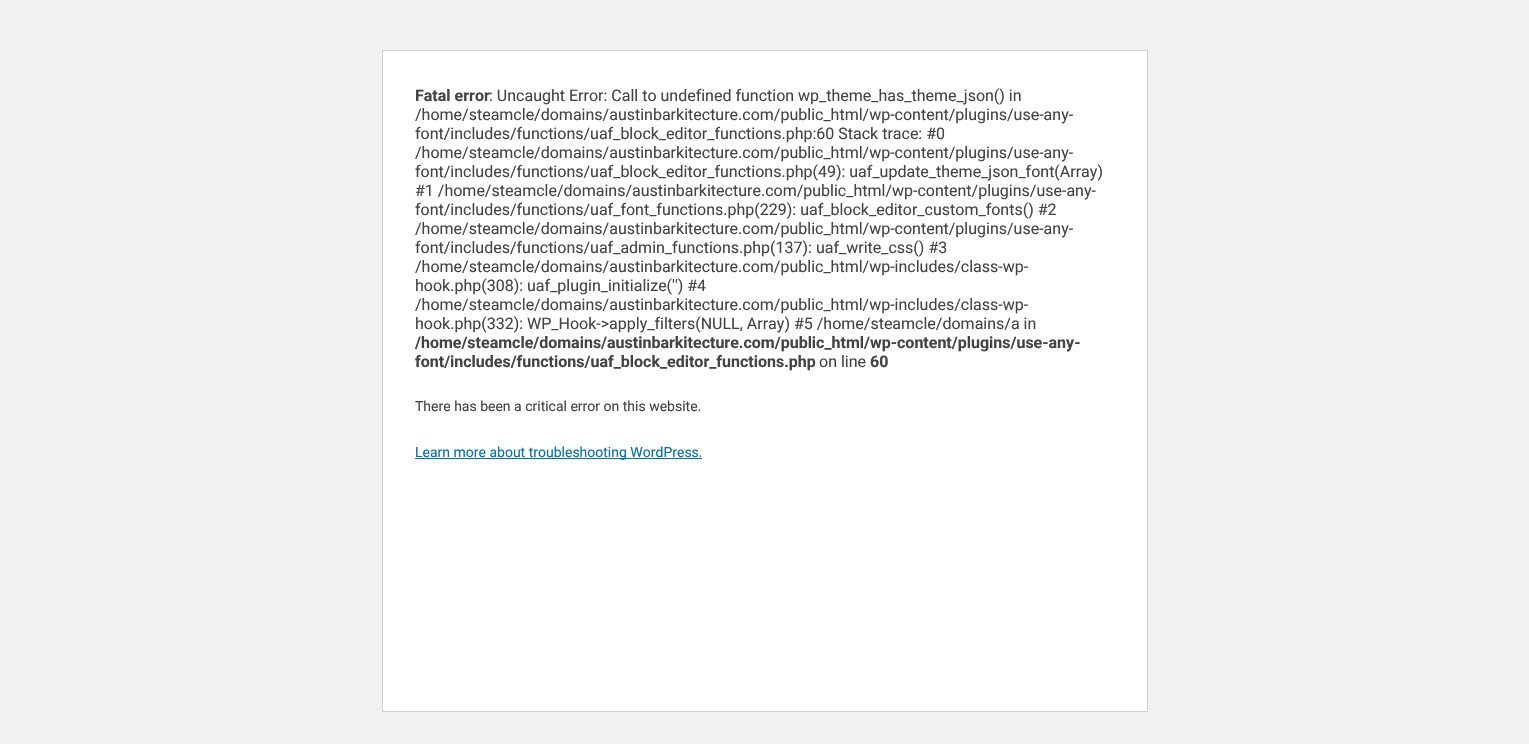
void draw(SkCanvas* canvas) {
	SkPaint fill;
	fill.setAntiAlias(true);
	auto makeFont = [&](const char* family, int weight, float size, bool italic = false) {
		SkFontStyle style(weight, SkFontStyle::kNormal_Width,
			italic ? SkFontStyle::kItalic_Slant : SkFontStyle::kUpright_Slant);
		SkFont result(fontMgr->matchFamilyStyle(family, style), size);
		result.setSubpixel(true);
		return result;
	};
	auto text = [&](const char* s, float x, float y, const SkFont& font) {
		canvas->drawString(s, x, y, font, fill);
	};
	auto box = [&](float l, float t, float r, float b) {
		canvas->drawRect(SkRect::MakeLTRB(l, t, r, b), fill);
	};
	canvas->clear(0xFFF1F1F1);
	fill.setColor(0xFFFFFFFF);
	canvas->drawRect(SkRect::MakeLTRB(382.5f, 50.5f, 1147.5f, 711.5f), fill);
	fill.setStyle(SkPaint::kStroke_Style);
	fill.setStrokeWidth(1);
	fill.setColor(0xFFCCD0D4);
	canvas->drawRect(SkRect::MakeLTRB(382.5f, 50.5f, 1147.5f, 711.5f), fill);
	fill.setStyle(SkPaint::kFill_Style);
	fill.setColor(0xFF0073AA);
	box(415, 458, 702, 459);
	auto font1 = makeFont("Roboto", 700, 16);
	fill.setColor(0xFF444444);
	text("Fatal error", 415, 101, font1);
	auto font2 = makeFont("Roboto", 400, 16);
	text(": Uncaught Error: Call to undefined function wp_theme_has_theme_json() in", 489, 101, font2);
	text("/home/steamcle/domains/austinbarkitecture.com/public_html/wp-content/plugins/use-any-", 415, 120, font2);
	text("font/includes/functions/uaf_block_editor_functions.php:60 Stack trace: #0", 415, 139, font2);
	text("/home/steamcle/domains/austinbarkitecture.com/public_html/wp-content/plugins/use-any-", 415, 158, font2);
	text("font/includes/functions/uaf_block_editor_functions.php(49): uaf_update_theme_json_font(Array)", 415, 177, font2);
	text("#1 /home/steamcle/domains/austinbarkitecture.com/public_html/wp-content/plugins/use-any-", 415, 196, font2);
	text("font/includes/functions/uaf_font_functions.php(229): uaf_block_editor_custom_fonts() #2", 415, 215, font2);
	text("/home/steamcle/domains/austinbarkitecture.com/public_html/wp-content/plugins/use-any-", 415, 234, font2);
	text("font/includes/functions/uaf_admin_functions.php(137): uaf_write_css() #3", 415, 253, font2);
	text("/home/steamcle/domains/austinbarkitecture.com/public_html/wp-includes/class-wp-", 415, 272, font2);
	text("hook.php(308): uaf_plugin_initialize('') #4", 415, 291, font2);
	text("/home/steamcle/domains/austinbarkitecture.com/public_html/wp-includes/class-wp-", 415, 310, font2);
	text("hook.php(332): WP_Hook->apply_filters(NULL, Array) #5 /home/steamcle/domains/a in", 415, 329, font2);
	text("/home/steamcle/domains/austinbarkitecture.com/public_html/wp-content/plugins/use-any-", 415, 348, font1);
	text("font/includes/functions/uaf_block_editor_functions.php", 415, 367, font1);
	text("on line", 819, 367, font2);
	text("60", 870, 367, font1);
	auto font3 = makeFont("Roboto", 400, 14);
	text("There has been a critical error on this website.", 415, 411, font3);
	fill.setColor(0xFF0073AA);
	text("Learn more about troubleshooting WordPress.", 415, 457, font3);
}
